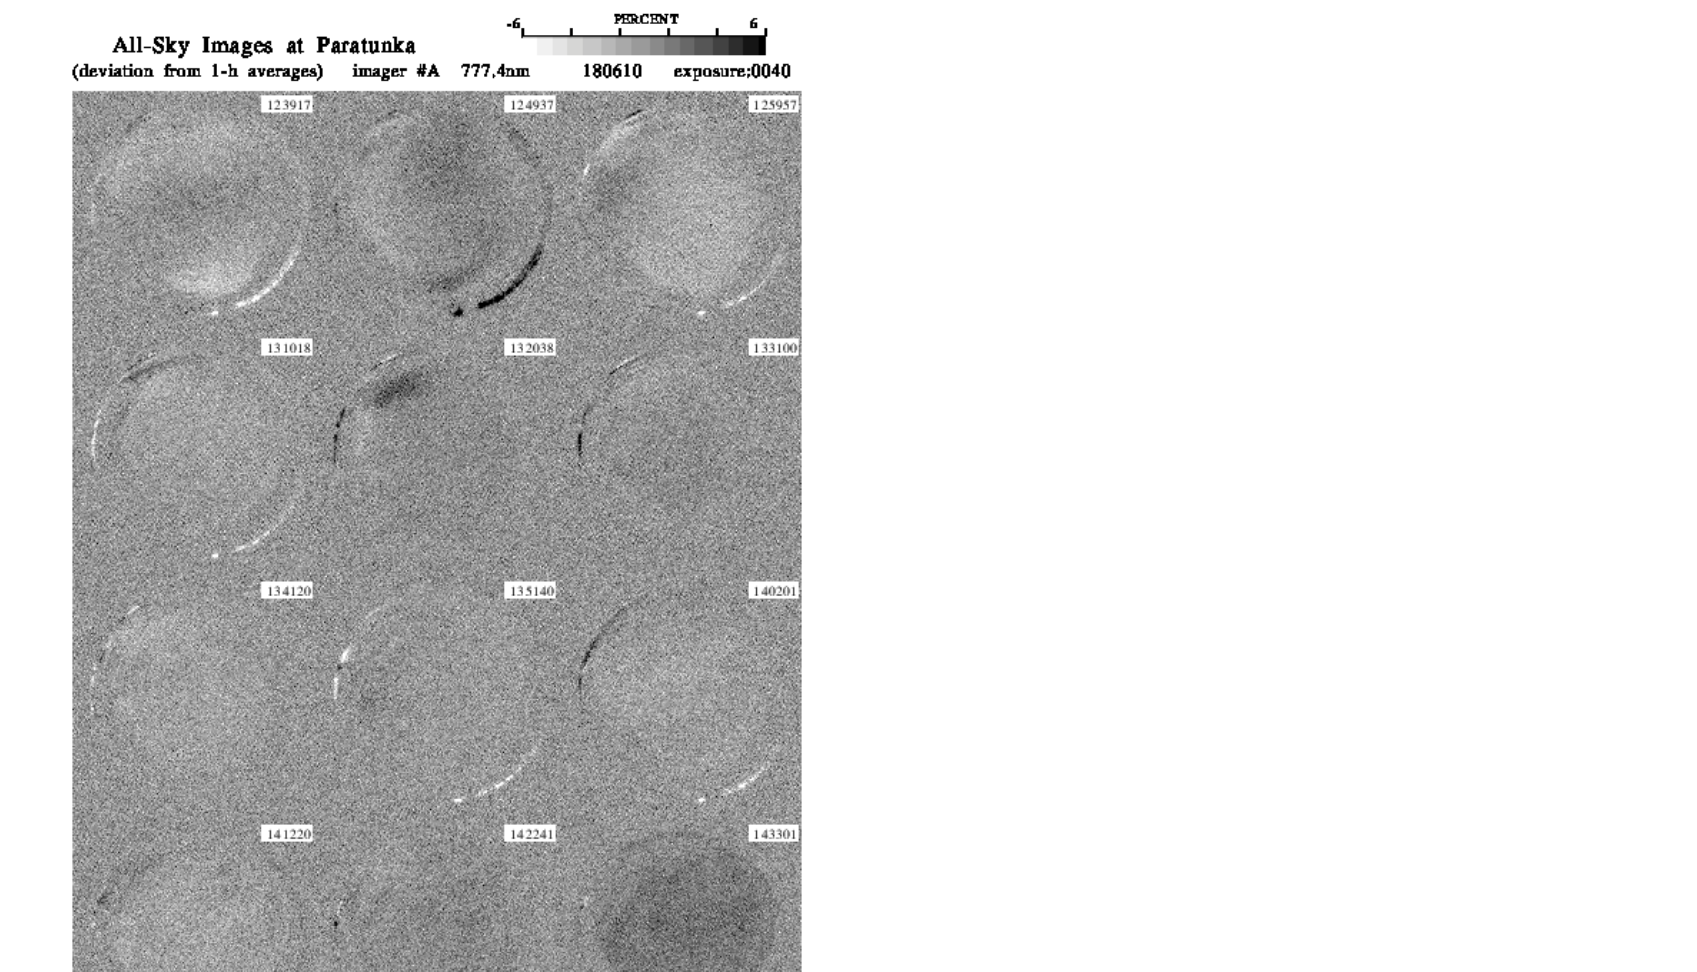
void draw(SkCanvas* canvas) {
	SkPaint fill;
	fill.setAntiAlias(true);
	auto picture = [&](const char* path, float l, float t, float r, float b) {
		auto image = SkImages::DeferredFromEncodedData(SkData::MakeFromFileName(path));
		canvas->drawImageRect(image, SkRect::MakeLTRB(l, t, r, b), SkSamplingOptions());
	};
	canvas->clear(0xFFFFFFFF);
	picture("image0.png", 72, 13, 802, 972);
}
